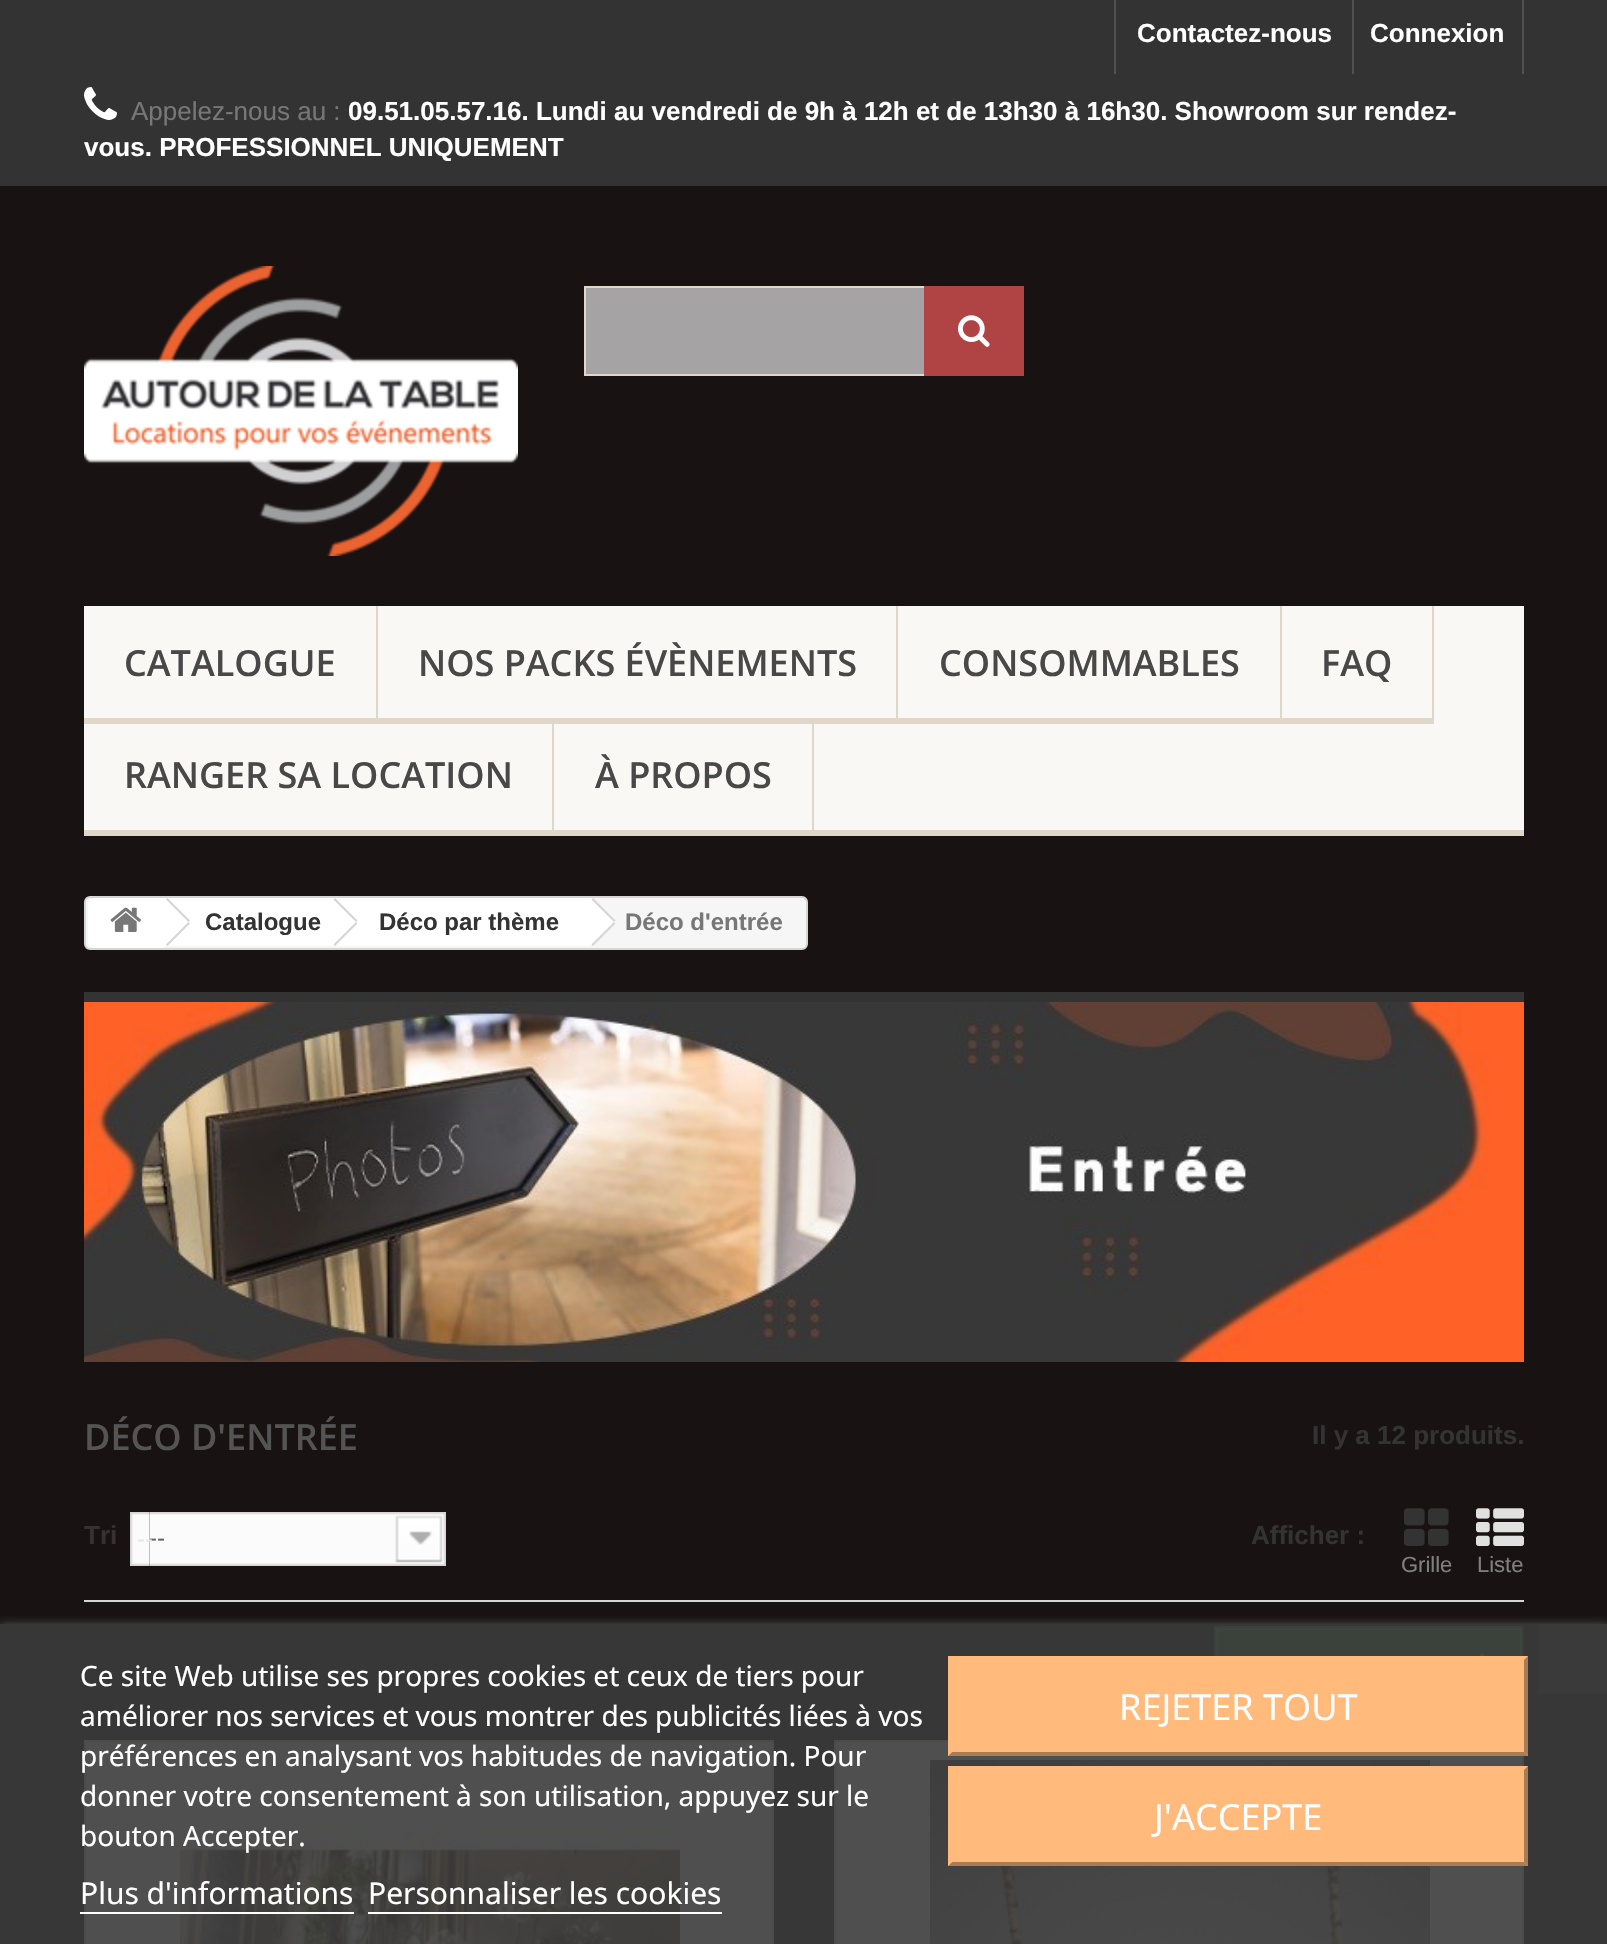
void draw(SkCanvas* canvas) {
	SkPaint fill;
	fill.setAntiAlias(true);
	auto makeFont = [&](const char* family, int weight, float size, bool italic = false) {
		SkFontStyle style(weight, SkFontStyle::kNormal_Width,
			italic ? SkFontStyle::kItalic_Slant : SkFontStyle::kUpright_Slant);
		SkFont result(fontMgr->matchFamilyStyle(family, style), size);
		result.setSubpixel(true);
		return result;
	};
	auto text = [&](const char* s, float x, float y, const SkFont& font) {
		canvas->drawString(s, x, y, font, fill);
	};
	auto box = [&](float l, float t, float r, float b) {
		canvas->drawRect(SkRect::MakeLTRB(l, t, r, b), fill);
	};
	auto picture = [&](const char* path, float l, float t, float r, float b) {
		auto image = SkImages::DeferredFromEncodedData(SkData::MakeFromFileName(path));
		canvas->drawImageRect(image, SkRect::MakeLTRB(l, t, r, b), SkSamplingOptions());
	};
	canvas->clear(0xFF181212);
	fill.setColor(0xFF383737);
	box(0, 1624, 1607, 1944);
	fill.setColor(0xFF333333);
	box(0, 0, 1607, 186);
	fill.setColor(0xFF515151);
	box(1114, 0, 1116, 74);
	box(1522, 0, 1524, 74);
	box(1352, 0, 1354, 74);
	picture("image0.png", 84, 87, 117, 120);
	picture("image1.png", 84, 266, 518, 556);
	fill.setColor(0xFFA5A3A3);
	box(586, 288, 924, 374);
	fill.setStyle(SkPaint::kStroke_Style);
	fill.setStrokeWidth(2);
	fill.setColor(0xFFDFD8CA);
	canvas->drawRect(SkRect::MakeLTRB(585, 287, 1023, 375), fill);
	fill.setStyle(SkPaint::kFill_Style);
	fill.setColor(0xFFB04445);
	box(924, 286, 1024, 376);
	picture("image2.png", 958, 315, 990, 347);
	fill.setColor(0xFFFAF8F4);
	box(84, 606, 1524, 830);
	fill.setColor(0xFFDFD8CA);
	box(84, 830, 1524, 836);
	box(376, 606, 378, 724);
	box(84, 718, 376, 724);
	box(896, 606, 898, 724);
	box(378, 718, 896, 724);
	box(1280, 606, 1282, 724);
	box(898, 718, 1280, 724);
	box(1432, 606, 1434, 724);
	box(1282, 718, 1432, 724);
	box(552, 718, 554, 836);
	box(812, 718, 814, 836);
	{
		const SkColor colors[] = {0xFF3A423B, 0xFF3A413B};
		const float stops[] = {0, 1};
		const SkPoint ends[] = {{1369, 1628}, {1369, 1714}};
		fill.setShader(SkGradientShader::MakeLinear(ends, colors, stops, 2, SkTileMode::kClamp));
		fill.setAlpha(255);
	}
	box(1218, 1630, 1520, 1656);
	fill.setShader(nullptr);
	fill.setColor(0xFF3A403B);
	box(1214, 1626, 1524, 1628);
	fill.setColor(0xFF383E39);
	box(1522, 1626, 1524, 1656);
	fill.setColor(0xFF3A403B);
	box(1214, 1626, 1216, 1656);
	fill.setStyle(SkPaint::kStroke_Style);
	fill.setColor(0xFF3E443E);
	canvas->drawRect(SkRect::MakeLTRB(1217, 1629, 1521, 1713), fill);
	picture("image9.png", 1479, 1653, 1485, 1656);
	fill.setStyle(SkPaint::kFill_Style);
	fill.setColor(0xFF4F4F4F);
	canvas->drawRect(SkRect::MakeLTRB(85, 1741, 773, 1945), fill);
	fill.setStyle(SkPaint::kStroke_Style);
	fill.setColor(0xFF4B4B49);
	canvas->drawRect(SkRect::MakeLTRB(85, 1741, 773, 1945), fill);
	picture("image10.png", 180, 1760, 680, 1944);
	fill.setStyle(SkPaint::kFill_Style);
	fill.setColor(0xFF4F4F4F);
	canvas->drawRect(SkRect::MakeLTRB(835, 1741, 1523, 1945), fill);
	fill.setStyle(SkPaint::kStroke_Style);
	fill.setColor(0xFF4B4B49);
	canvas->drawRect(SkRect::MakeLTRB(835, 1741, 1523, 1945), fill);
	picture("image11.png", 930, 1760, 1430, 1944);
	canvas->save();
	canvas->clipRect(SkRect::MakeLTRB(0, 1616, 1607, 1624));
	fill.setStyle(SkPaint::kFill_Style);
	fill.setColor(0xFF707070);
	fill.setMaskFilter(SkMaskFilter::MakeBlur(kNormal_SkBlurStyle, 5));
	canvas->drawRect(SkRect::MakeLTRB(0, 1626, 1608, 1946), fill);
	fill.setMaskFilter(nullptr);
	canvas->restore();
	fill.setColor(0xFFFFFFFF);
	box(80, 1912, 354, 1914);
	box(368, 1912, 722, 1914);
	fill.setColor(0xFFFFBA7C);
	box(948, 1656, 1528, 1756);
	fill.setColor(0xFFAA7C53);
	canvas->drawPath(SkPathBuilder().moveTo(1528, 1656).lineTo(1528, 1756).lineTo(1524, 1752).lineTo(1524, 1660).close().detach(), fill);
	canvas->drawPath(SkPathBuilder().moveTo(1528, 1756).lineTo(948, 1756).lineTo(952, 1752).lineTo(1524, 1752).close().detach(), fill);
	fill.setColor(0xFFFFBA7C);
	canvas->drawPath(SkPathBuilder().moveTo(948, 1756).lineTo(948, 1656).lineTo(952, 1660).lineTo(952, 1752).close().detach(), fill);
	box(948, 1766, 1528, 1866);
	fill.setColor(0xFFAA7C53);
	canvas->drawPath(SkPathBuilder().moveTo(1528, 1766).lineTo(1528, 1866).lineTo(1524, 1862).lineTo(1524, 1770).close().detach(), fill);
	canvas->drawPath(SkPathBuilder().moveTo(1528, 1866).lineTo(948, 1866).lineTo(952, 1862).lineTo(1524, 1862).close().detach(), fill);
	fill.setColor(0xFFFFBA7C);
	canvas->drawPath(SkPathBuilder().moveTo(948, 1866).lineTo(948, 1766).lineTo(952, 1770).lineTo(952, 1862).close().detach(), fill);
	fill.setColor(0xFF3A3A3A);
	box(1538, 1624, 1607, 1694);
	fill.setColor(0xFFF6F6F6);
	canvas->drawRoundRect(SkRect::MakeLTRB(85, 897, 807, 949), 5, 5, fill);
	fill.setStyle(SkPaint::kStroke_Style);
	fill.setColor(0xFFD6D4D4);
	canvas->drawRoundRect(SkRect::MakeLTRB(85, 897, 807, 949), 5, 5, fill);
	fill.setStyle(SkPaint::kFill_Style);
	fill.setColor(0xFFFFFFFF);
	canvas->drawPath(SkPathBuilder().moveTo(94, 898).lineTo(164, 898).lineTo(164, 948).lineTo(94, 948).cubicTo(90.5f, 948, 88, 945.5f, 88, 942).lineTo(88, 904).cubicTo(88, 900.5f, 90.5f, 898, 94, 898).close().detach(), fill);
	picture("image3.png", 110, 907, 141, 932);
	box(164, 898, 336, 946);
	fill.setColor(0xFFD6D4D4);
	canvas->drawPath(SkPathBuilder().moveTo(167.5f, 898).lineTo(190, 920.5f).lineTo(188.5f, 922).lineTo(166, 899.5f).close().moveTo(188.5f, 922).lineTo(190, 923.5f).lineTo(167.5f, 946).lineTo(166, 944.5f).close().detach(), fill);
	fill.setColor(0xFFFFFFFF);
	canvas->drawPath(SkPathBuilder().moveTo(356, 899).lineTo(376, 919).cubicTo(378, 921, 378, 923, 376, 925).lineTo(356, 945).cubicTo(355, 946, 352, 946, 351, 945).lineTo(331, 925).cubicTo(329, 923, 329, 921, 331, 919).lineTo(351, 899).cubicTo(352, 898, 355, 898, 356, 899).close().detach(), fill);
	box(336, 898, 590, 946);
	fill.setColor(0xFFD6D4D4);
	canvas->drawPath(SkPathBuilder().moveTo(335, 898).lineTo(357.5f, 920.5f).lineTo(356, 922).lineTo(333.5f, 899.5f).close().moveTo(356, 922).lineTo(357.5f, 923.5f).lineTo(335, 946).lineTo(333.5f, 944.5f).close().detach(), fill);
	fill.setColor(0xFFFFFFFF);
	canvas->drawPath(SkPathBuilder().moveTo(594, 899).lineTo(614, 919).cubicTo(616, 921, 616, 923, 614, 925).lineTo(594, 945).cubicTo(593, 946, 590, 946, 589, 945).lineTo(569, 925).cubicTo(567, 923, 567, 921, 569, 919).lineTo(589, 899).cubicTo(590, 898, 593, 898, 594, 899).close().detach(), fill);
	fill.setColor(0xFFD6D4D4);
	canvas->drawPath(SkPathBuilder().moveTo(593, 898).lineTo(615.5f, 920.5f).lineTo(614, 922).lineTo(591.5f, 899.5f).close().moveTo(614, 922).lineTo(615.5f, 923.5f).lineTo(593, 946).lineTo(591.5f, 944.5f).close().detach(), fill);
	fill.setColor(0xFF333333);
	box(84, 992, 1524, 1002);
	picture("image4.png", 84, 1002, 1524, 1362);
	fill.setColor(0xFFD6D4D4);
	box(84, 1600, 1524, 1602);
	picture("image5.png", 130, 1512, 150, 1566);
	picture("image6.png", 150, 1512, 446, 1566);
	picture("image7.png", 1404, 1508, 1449, 1546);
	picture("image8.png", 1476, 1508, 1524, 1546);
	auto font1 = makeFont("Liberation Sans", 700, 26);
	fill.setColor(0xFFFFFFFF);
	text("Contactez-nous", 1137, 42, font1);
	text("Connexion", 1370, 42, font1);
	auto font2 = makeFont("Liberation Sans", 400, 26);
	fill.setColor(0xFF777777);
	text("Appelez-nous au :", 131, 120, font2);
	fill.setColor(0xFFFFFFFF);
	text("09.51.05.57.16. Lundi au vendredi de 9h à 12h et de 13h30 à 16h30. Showroom sur rendez-", 348, 120, font1);
	text("vous. PROFESSIONNEL UNIQUEMENT", 84, 156, font1);
	auto font3 = makeFont("Open Sans", 600, 36);
	fill.setColor(0xFF484848);
	text("CATALOGUE", 124, 676, font3);
	text("NOS PACKS ÉVÈNEMENTS", 418, 676, font3);
	text("CONSOMMABLES", 939, 676, font3);
	text("FAQ", 1321, 676, font3);
	text("RANGER SA LOCATION", 124, 788, font3);
	text("À PROPOS", 595, 788, font3);
	auto font4 = makeFont("Noto Sans", 400, 28);
	fill.setColor(0xFFFFFFFF);
	text("Ce site Web utilise ses propres cookies et ceux de tiers pour", 80, 1686, font4);
	text("améliorer nos services et vous montrer des publicités liées à vos", 80, 1726, font4);
	text("préférences en analysant vos habitudes de navigation. Pour", 80, 1766, font4);
	text("donner votre consentement à son utilisation, appuyez sur le", 80, 1806, font4);
	text("bouton Accepter.", 80, 1846, font4);
	auto font5 = makeFont("Noto Sans", 400, 30);
	text("Plus d'informations", 80, 1904, font5);
	text("Personnaliser les cookies", 368, 1904, font5);
	auto font6 = makeFont("Noto Sans", 400, 36);
	text("REJETER TOUT", 1119, 1720, font6);
	text("J'ACCEPTE", 1154, 1830, font6);
	auto font7 = makeFont("Liberation Sans", 700, 24);
	fill.setColor(0xFF333333);
	text("Catalogue", 205, 930, font7);
	text("Déco par thème", 379, 930, font7);
	fill.setColor(0xFF777777);
	text("Déco d'entrée", 625, 930, font7);
	fill.setColor(0xFF555454);
	text("DÉCO D'ENTRÉE", 84, 1450, font3);
	fill.setColor(0xFF333333);
	text("Il y a 12 produits.", 1312, 1444, font1);
	text("Tri", 84, 1544, font1);
	auto font8 = makeFont("Liberation Sans", 400, 24);
	fill.setColor(0xFF666666);
	text("--", 149, 1546, font8);
	fill.setColor(0xFFE8E8E8);
	text("--", 137, 1547, font8);
	fill.setColor(0xFF333333);
	text("Afficher :", 1251, 1544, font1);
	auto font9 = makeFont("Liberation Sans", 400, 22);
	fill.setColor(0xFF808080);
	text("Grille", 1401, 1572, font9);
	text("Liste", 1477, 1572, font9);
}
